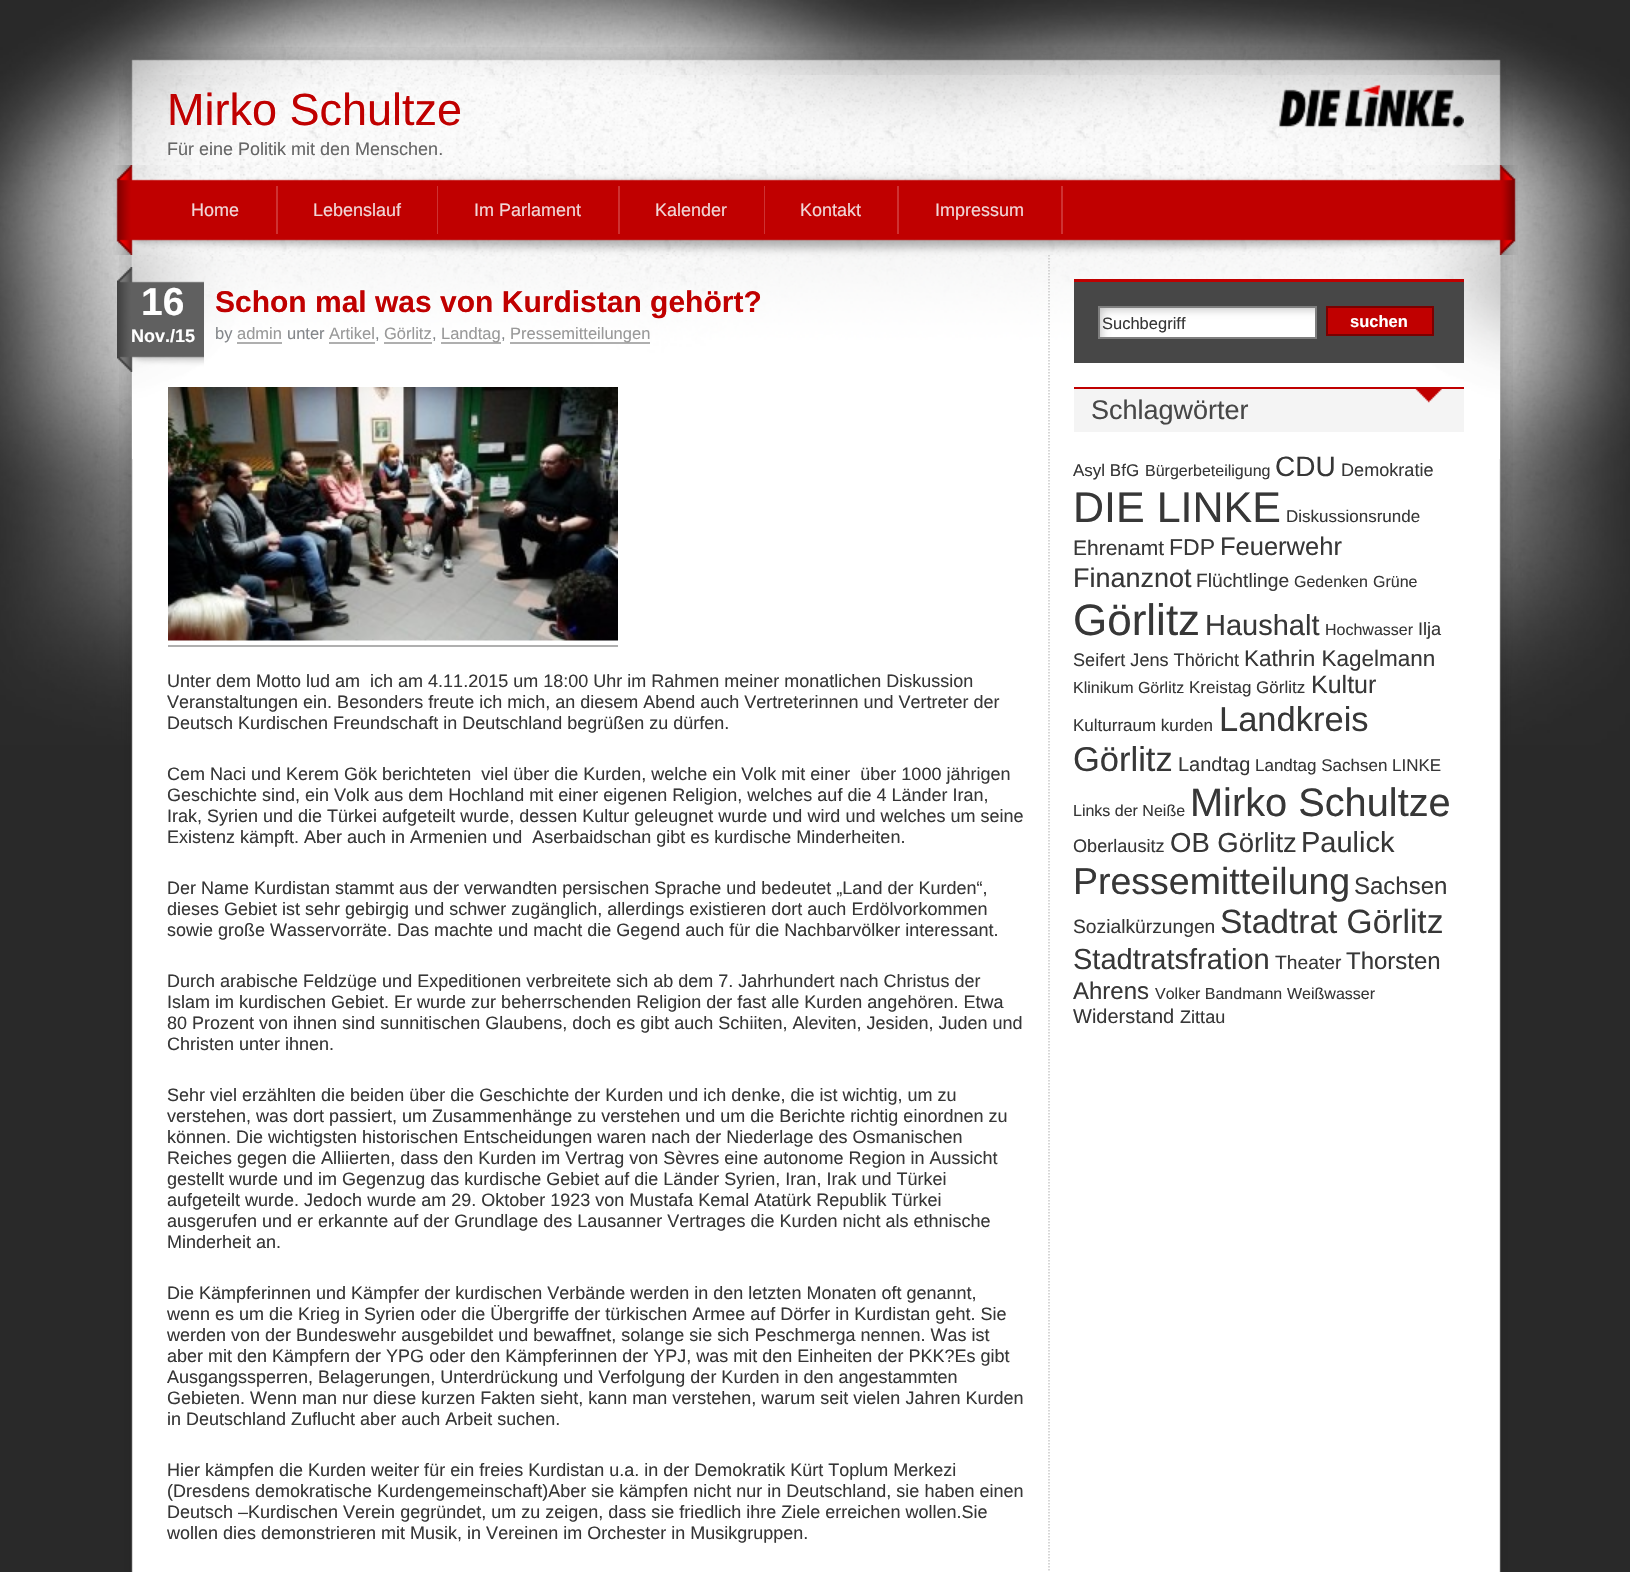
void draw(SkCanvas* canvas) {
	SkPaint fill;
	fill.setAntiAlias(true);
	auto makeFont = [&](const char* family, int weight, float size, bool italic = false) {
		SkFontStyle style(weight, SkFontStyle::kNormal_Width,
			italic ? SkFontStyle::kItalic_Slant : SkFontStyle::kUpright_Slant);
		SkFont result(fontMgr->matchFamilyStyle(family, style), size);
		result.setSubpixel(true);
		return result;
	};
	auto text = [&](const char* s, float x, float y, const SkFont& font) {
		canvas->drawString(s, x, y, font, fill);
	};
	auto box = [&](float l, float t, float r, float b) {
		canvas->drawRect(SkRect::MakeLTRB(l, t, r, b), fill);
	};
	auto picture = [&](const char* path, float l, float t, float r, float b) {
		auto image = SkImages::DeferredFromEncodedData(SkData::MakeFromFileName(path));
		canvas->drawImageRect(image, SkRect::MakeLTRB(l, t, r, b), SkSamplingOptions());
	};
	canvas->clear(0xFF292929);
	picture("image0.png", 0, 0, 1630, 745);
	picture("image1.png", 123, 47, 1506, 75);
	picture("image2.png", 119, 75, 1513, 165);
	picture("image3.png", 1279, 84, 1464, 128);
	picture("image4.png", 113, 165, 1518, 255);
	fill.setColor(0xFFCE3232);
	box(276, 186, 278, 234);
	box(437, 186, 438, 234);
	box(618, 186, 620, 234);
	box(764, 186, 765, 234);
	box(897, 186, 899, 234);
	box(1061, 186, 1063, 234);
	picture("image5.png", 119, 255, 1513, 1572);
	picture("image6.png", 132, 255, 1500, 459);
	fill.setStyle(SkPaint::kStroke_Style);
	fill.setStrokeWidth(1.5f);
	fill.setColor(0xFFC9C9C9);
	fill.setPathEffect(SkDashPathEffect::Make({{1.5f, 1.5f}}, 0));
	canvas->drawPath(SkPathBuilder().moveTo(1049, 255).lineTo(1049, 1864.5f).detach(), fill);
	fill.setPathEffect(nullptr);
	picture("image7.png", 117, 267, 204, 372);
	fill.setStyle(SkPaint::kFill_Style);
	fill.setColor(0xFFAFAFAF);
	box(237, 342, 282, 344);
	box(329, 342, 375, 344);
	box(384, 342, 432, 344);
	box(441, 342, 501, 344);
	box(510, 342, 650, 344);
	picture("image8.png", 168, 387, 618, 641);
	box(168, 645, 618, 647);
	fill.setColor(0xFF474747);
	box(1074, 282, 1464, 363);
	fill.setColor(0xFFC00000);
	box(1074, 279, 1464, 282);
	picture("image9.png", 1100, 308, 1315, 337);
	fill.setStyle(SkPaint::kStroke_Style);
	fill.setStrokeWidth(2);
	fill.setColor(0xFF7F7F7F);
	canvas->drawRect(SkRect::MakeLTRB(1099, 307, 1316, 338), fill);
	fill.setStyle(SkPaint::kFill_Style);
	fill.setColor(0xFFC00000);
	canvas->drawRect(SkRect::MakeLTRB(1327, 307, 1433, 335), fill);
	fill.setStyle(SkPaint::kStroke_Style);
	fill.setColor(0xFF7A0000);
	canvas->drawRect(SkRect::MakeLTRB(1327, 307, 1433, 335), fill);
	fill.setStyle(SkPaint::kFill_Style);
	fill.setColor(0xFFF4F4F4);
	box(1074, 389, 1464, 432);
	picture("image10.png", 1415, 389, 1442, 403);
	fill.setColor(0xFFC00000);
	box(1074, 387, 1464, 389);
	auto font1 = makeFont("Liberation Sans", 400, 45);
	text("Mirko Schultze", 167, 125, font1);
	auto font2 = makeFont("Liberation Sans", 400, 18);
	fill.setColor(0xFF666666);
	text("Für eine Politik mit den Menschen.", 167, 155, font2);
	fill.setColor(0xFFF1D7D7);
	text("Home", 191, 216, font2);
	text("Lebenslauf", 313, 216, font2);
	text("Im Parlament", 474, 216, font2);
	text("Kalender", 655, 216, font2);
	text("Kontakt", 800, 216, font2);
	text("Impressum", 935, 216, font2);
	auto font3 = makeFont("Liberation Sans", 700, 39);
	fill.setColor(0xFFFFFFFF);
	text("16", 141, 315, font3);
	auto font4 = makeFont("Liberation Sans", 700, 18);
	text("Nov./15", 131, 342, font4);
	auto font5 = makeFont("Liberation Sans", 700, 30);
	fill.setColor(0xFFC00000);
	text("Schon mal was von Kurdistan gehört?", 215, 312, font5);
	auto font6 = makeFont("Liberation Sans", 400, 16.5f);
	fill.setColor(0xFF84878B);
	text("by", 215, 339, font6);
	fill.setColor(0xFF999999);
	text("admin", 237, 339, font6);
	fill.setColor(0xFF84878B);
	text("unter", 287, 339, font6);
	fill.setColor(0xFF999999);
	text("Artikel", 329, 339, font6);
	fill.setColor(0xFF84878B);
	text(",", 375, 339, font6);
	fill.setColor(0xFF999999);
	text("Görlitz", 384, 339, font6);
	fill.setColor(0xFF84878B);
	text(",", 432, 339, font6);
	fill.setColor(0xFF999999);
	text("Landtag", 441, 339, font6);
	fill.setColor(0xFF84878B);
	text(",", 501, 339, font6);
	fill.setColor(0xFF999999);
	text("Pressemitteilungen", 510, 339, font6);
	fill.setColor(0xFF373737);
	text("Unter dem Motto lud am  ich am 4.11.2015 um 18:00 Uhr im Rahmen meiner monatlichen Diskussion", 167, 687, font2);
	text("Veranstaltungen ein. Besonders freute ich mich, an diesem Abend auch Vertreterinnen und Vertreter der", 167, 708, font2);
	text("Deutsch Kurdischen Freundschaft in Deutschland begrüßen zu dürfen.", 167, 729, font2);
	text("Cem Naci und Kerem Gök berichteten  viel über die Kurden, welche ein Volk mit einer  über 1000 jährigen", 167, 780, font2);
	text("Geschichte sind, ein Volk aus dem Hochland mit einer eigenen Religion, welches auf die 4 Länder Iran,", 167, 801, font2);
	text("Irak, Syrien und die Türkei aufgeteilt wurde, dessen Kultur geleugnet wurde und wird und welches um seine", 167, 822, font2);
	text("Existenz kämpft. Aber auch in Armenien und  Aserbaidschan gibt es kurdische Minderheiten.", 167, 843, font2);
	text("Der Name Kurdistan stammt aus der verwandten persischen Sprache und bedeutet „Land der Kurden“,", 167, 894, font2);
	text("dieses Gebiet ist sehr gebirgig und schwer zugänglich, allerdings existieren dort auch Erdölvorkommen", 167, 915, font2);
	text("sowie große Wasservorräte. Das machte und macht die Gegend auch für die Nachbarvölker interessant.", 167, 936, font2);
	text("Durch arabische Feldzüge und Expeditionen verbreitete sich ab dem 7. Jahrhundert nach Christus der", 167, 987, font2);
	text("Islam im kurdischen Gebiet. Er wurde zur beherrschenden Religion der fast alle Kurden angehören. Etwa", 167, 1008, font2);
	text("80 Prozent von ihnen sind sunnitischen Glaubens, doch es gibt auch Schiiten, Aleviten, Jesiden, Juden und", 167, 1029, font2);
	text("Christen unter ihnen.", 167, 1050, font2);
	text("Sehr viel erzählten die beiden über die Geschichte der Kurden und ich denke, die ist wichtig, um zu", 167, 1101, font2);
	text("verstehen, was dort passiert, um Zusammenhänge zu verstehen und um die Berichte richtig einordnen zu", 167, 1122, font2);
	text("können. Die wichtigsten historischen Entscheidungen waren nach der Niederlage des Osmanischen", 167, 1143, font2);
	text("Reiches gegen die Alliierten, dass den Kurden im Vertrag von Sèvres eine autonome Region in Aussicht", 167, 1164, font2);
	text("gestellt wurde und im Gegenzug das kurdische Gebiet auf die Länder Syrien, Iran, Irak und Türkei", 167, 1185, font2);
	text("aufgeteilt wurde. Jedoch wurde am 29. Oktober 1923 von Mustafa Kemal Atatürk Republik Türkei", 167, 1206, font2);
	text("ausgerufen und er erkannte auf der Grundlage des Lausanner Vertrages die Kurden nicht als ethnische", 167, 1227, font2);
	text("Minderheit an.", 167, 1248, font2);
	text("Die Kämpferinnen und Kämpfer der kurdischen Verbände werden in den letzten Monaten oft genannt,", 167, 1299, font2);
	text("wenn es um die Krieg in Syrien oder die Übergriffe der türkischen Armee auf Dörfer in Kurdistan geht. Sie", 167, 1320, font2);
	text("werden von der Bundeswehr ausgebildet und bewaffnet, solange sie sich Peschmerga nennen. Was ist", 167, 1341, font2);
	text("aber mit den Kämpfern der YPG oder den Kämpferinnen der YPJ, was mit den Einheiten der PKK?Es gibt", 167, 1362, font2);
	text("Ausgangssperren, Belagerungen, Unterdrückung und Verfolgung der Kurden in den angestammten", 167, 1383, font2);
	text("Gebieten. Wenn man nur diese kurzen Fakten sieht, kann man verstehen, warum seit vielen Jahren Kurden", 167, 1404, font2);
	text("in Deutschland Zuflucht aber auch Arbeit suchen.", 167, 1425, font2);
	text("Hier kämpfen die Kurden weiter für ein freies Kurdistan u.a. in der Demokratik Kürt Toplum Merkezi", 167, 1476, font2);
	text("(Dresdens demokratische Kurdengemeinschaft)Aber sie kämpfen nicht nur in Deutschland, sie haben einen", 167, 1497, font2);
	text("Deutsch –Kurdischen Verein gegründet, um zu zeigen, dass sie friedlich ihre Ziele erreichen wollen.Sie", 167, 1518, font2);
	text("wollen dies demonstrieren mit Musik, in Vereinen im Orchester in Musikgruppen.", 167, 1539, font2);
	text("Suchbegriff", 1102, 329, font6);
	auto font7 = makeFont("Liberation Sans", 700, 16.5f);
	fill.setColor(0xFFFFFFFF);
	text("suchen", 1350, 327, font7);
	auto font8 = makeFont("Liberation Sans", 400, 27);
	fill.setColor(0xFF474747);
	text("Schlagwörter", 1091, 419, font8);
	auto font9 = makeFont("Liberation Sans", 400, 17);
	fill.setColor(0xFF373737);
	text("Asyl BfG", 1073, 476, font9);
	auto font10 = makeFont("Liberation Sans", 400, 16);
	text("Bürgerbeteiligung", 1145, 476, font10);
	auto font11 = makeFont("Liberation Sans", 400, 28);
	text("CDU", 1275, 476, font11);
	auto font12 = makeFont("Liberation Sans", 400, 18.1f);
	text("Demokratie", 1341, 476, font12);
	auto font13 = makeFont("Liberation Sans", 400, 43);
	text("DIE LINKE", 1073, 522, font13);
	text("Diskussionsrunde", 1286, 522, font9);
	auto font14 = makeFont("Liberation Sans", 400, 21);
	text("Ehrenamt", 1073, 555, font14);
	auto font15 = makeFont("Liberation Sans", 400, 23);
	text("FDP", 1169, 555, font15);
	auto font16 = makeFont("Liberation Sans", 400, 25.5f);
	text("Feuerwehr", 1220, 555, font16);
	text("Finanznot", 1073, 587, font8);
	auto font17 = makeFont("Liberation Sans", 400, 19.25f);
	text("Flüchtlinge", 1196, 587, font17);
	text("Gedenken", 1294, 587, font10);
	text("Grüne", 1373, 587, font10);
	auto font18 = makeFont("Liberation Sans", 400, 44);
	text("Görlitz", 1073, 635, font18);
	auto font19 = makeFont("Liberation Sans", 400, 29);
	text("Haushalt", 1205, 635, font19);
	text("Hochwasser", 1325, 635, font10);
	text("Ilja", 1418, 635, font12);
	text("Seifert Jens Thöricht", 1073, 666, font12);
	auto font20 = makeFont("Liberation Sans", 400, 22.5f);
	text("Kathrin Kagelmann", 1244, 666, font20);
	text("Klinikum Görlitz", 1073, 693, font10);
	text("Kreistag Görlitz", 1189, 693, font9);
	auto font21 = makeFont("Liberation Sans", 400, 25);
	text("Kultur", 1311, 693, font21);
	text("Kulturraum kurden", 1073, 731, font9);
	auto font22 = makeFont("Liberation Sans", 400, 34.5f);
	text("Landkreis", 1219, 731, font22);
	text("Görlitz", 1073, 771, font22);
	auto font23 = makeFont("Liberation Sans", 400, 20);
	text("Landtag", 1178, 771, font23);
	text("Landtag Sachsen LINKE", 1255, 771, font9);
	text("Links der Neiße", 1073, 816, font10);
	auto font24 = makeFont("Liberation Sans", 400, 39.75f);
	text("Mirko Schultze", 1190, 816, font24);
	text("Oberlausitz", 1073, 852, font12);
	auto font25 = makeFont("Liberation Sans", 400, 27.5f);
	text("OB Görlitz", 1170, 852, font25);
	text("Paulick", 1301, 852, font19);
	auto font26 = makeFont("Liberation Sans", 400, 37.5f);
	text("Pressemitteilung", 1073, 894, font26);
	auto font27 = makeFont("Liberation Sans", 400, 24);
	text("Sachsen", 1354, 894, font27);
	text("Sozialkürzungen", 1073, 933, font17);
	auto font28 = makeFont("Liberation Sans", 400, 33.5f);
	text("Stadtrat Görlitz", 1220, 933, font28);
	text("Stadtratsfration", 1073, 969, font19);
	text("Theater", 1275, 969, font17);
	text("Thorsten", 1346, 969, font27);
	text("Ahrens", 1073, 999, font27);
	text("Volker Bandmann", 1155, 999, font10);
	text("Weißwasser", 1287, 999, font10);
	text("Widerstand", 1073, 1023, font23);
	text("Zittau", 1180, 1023, font12);
}
